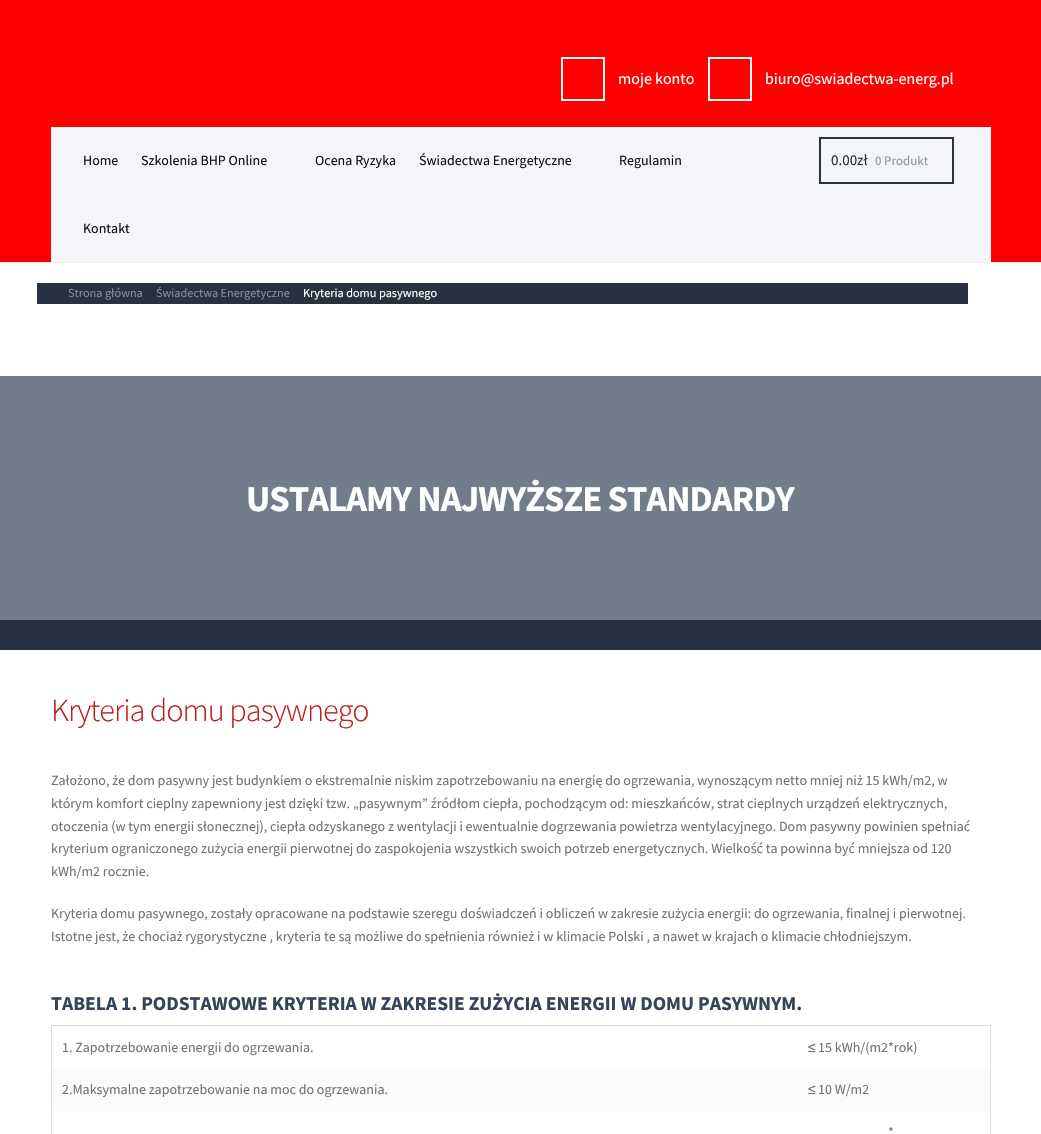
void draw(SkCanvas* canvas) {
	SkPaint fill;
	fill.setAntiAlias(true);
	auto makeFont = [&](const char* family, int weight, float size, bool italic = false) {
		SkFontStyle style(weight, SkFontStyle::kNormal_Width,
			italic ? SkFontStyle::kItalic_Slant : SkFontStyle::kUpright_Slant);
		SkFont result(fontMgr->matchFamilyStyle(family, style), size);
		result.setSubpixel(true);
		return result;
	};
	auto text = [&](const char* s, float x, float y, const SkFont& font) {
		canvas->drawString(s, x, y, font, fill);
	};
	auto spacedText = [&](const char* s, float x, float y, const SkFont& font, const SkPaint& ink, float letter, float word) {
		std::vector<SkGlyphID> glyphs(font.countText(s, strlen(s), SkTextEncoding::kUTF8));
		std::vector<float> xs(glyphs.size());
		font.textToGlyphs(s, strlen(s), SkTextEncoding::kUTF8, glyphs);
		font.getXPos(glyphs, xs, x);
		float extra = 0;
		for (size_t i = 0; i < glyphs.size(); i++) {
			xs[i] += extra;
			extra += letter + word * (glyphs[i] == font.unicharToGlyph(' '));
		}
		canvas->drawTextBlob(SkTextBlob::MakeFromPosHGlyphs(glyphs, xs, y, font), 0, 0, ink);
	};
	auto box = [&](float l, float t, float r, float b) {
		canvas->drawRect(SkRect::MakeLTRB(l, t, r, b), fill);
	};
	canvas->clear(0xFFFFFFFF);
	fill.setColor(0xFFFF0000);
	box(0, 0, 1041, 262);
	fill.setColor(0xFFF0F0F0);
	box(0, 262, 1041, 263);
	fill.setStyle(SkPaint::kStroke_Style);
	fill.setStrokeWidth(2);
	fill.setColor(0xFFFFFFFF);
	canvas->drawRect(SkRect::MakeLTRB(562, 58, 604, 100), fill);
	canvas->drawRect(SkRect::MakeLTRB(709, 58, 751, 100), fill);
	fill.setStyle(SkPaint::kFill_Style);
	fill.setColor(0xFFF4F5F9);
	box(51, 127, 991, 262);
	fill.setStyle(SkPaint::kStroke_Style);
	fill.setColor(0xFF273140);
	canvas->drawRect(SkRect::MakeLTRB(820, 138, 953, 183), fill);
	fill.setStyle(SkPaint::kFill_Style);
	box(37, 283, 968, 304);
	fill.setColor(0xFF727C8A);
	box(0, 376, 1041, 620);
	fill.setColor(0xFF273140);
	box(0, 620, 1041, 650);
	fill.setStyle(SkPaint::kStroke_Style);
	fill.setStrokeWidth(1);
	fill.setColor(0xFFDDDDDD);
	canvas->drawRect(SkRect::MakeLTRB(51.5f, 1025.5f, 990.5f, 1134.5f), fill);
	fill.setStyle(SkPaint::kFill_Style);
	fill.setColor(0xFFFBFBFB);
	box(52, 1068, 990, 1111);
	auto font1 = makeFont("Source Sans Pro", 400, 16);
	fill.setColor(0xFFFFFFFF);
	text("moje konto", 618, 84, font1);
	text("biuro@swiadectwa-energ.pl", 765, 84, font1);
	auto font2 = makeFont("Source Sans Pro", 400, 14);
	fill.setColor(0xFF111111);
	text("Home", 83, 165, font2);
	text("Szkolenia BHP Online", 141, 165, font2);
	text("Ocena Ryzyka", 315, 165, font2);
	text("Świadectwa Energetyczne", 419, 165, font2);
	text("Regulamin", 619, 165, font2);
	text("Kontakt", 83, 233, font2);
	auto font3 = makeFont("Source Sans Pro", 400, 15);
	fill.setColor(0xFF273140);
	text("0.00zł", 831, 165, font3);
	auto font4 = makeFont("Source Sans Pro", 400, 13);
	fill.setColor(0xFF8E939D);
	text("0 Produkt", 875, 165, font4);
	auto font5 = makeFont("Source Sans Pro", 400, 12.25f);
	fill.setColor(0xFF8A8C98);
	text("Strona główna", 68, 297, font5);
	text("Świadectwa Energetyczne", 156, 297, font5);
	fill.setColor(0xFFFFFFFF);
	text("Kryteria domu pasywnego", 303, 297, font5);
	auto font6 = makeFont("Source Sans Pro", 700, 36.6f);
	spacedText("USTALAMY NAJWYŻSZE STANDARDY", 246, 511, font6, fill, -1, 0);
	auto font7 = makeFont("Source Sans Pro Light", 300, 32.25f);
	fill.setColor(0xFFB82121);
	spacedText("Kryteria domu pasywnego", 51, 721, font7, fill, -1, 0);
	fill.setColor(0xFF737373);
	text("Założono, że dom pasywny jest budynkiem o ekstremalnie niskim zapotrzebowaniu na energię do ogrzewania, wynoszącym netto mniej niż 15 kWh/m2, w", 51, 785, font2);
	text("którym komfort cieplny zapewniony jest dzięki tzw. „pasywnym” źródłom ciepła, pochodzącym od: mieszkańców, strat cieplnych urządzeń elektrycznych,", 51, 808, font2);
	text("otoczenia (w tym energii słonecznej), ciepła odzyskanego z wentylacji i ewentualnie dogrzewania powietrza wentylacyjnego. Dom pasywny powinien spełniać", 51, 831, font2);
	text("kryterium ograniczonego zużycia energii pierwotnej do zaspokojenia wszystkich swoich potrzeb energetycznych. Wielkość ta powinna być mniejsza od 120", 51, 853, font2);
	text("kWh/m2 rocznie.", 51, 876, font2);
	text("Kryteria domu pasywnego, zostały opracowane na podstawie szeregu doświadczeń i obliczeń w zakresie zużycia energii: do ogrzewania, finalnej i pierwotnej.", 51, 918, font2);
	text("Istotne jest, że chociaż rygorystyczne , kryteria te są możliwe do spełnienia również i w klimacie Polski , a nawet w krajach o klimacie chłodniejszym.", 51, 941, font2);
	auto font8 = makeFont("Source Sans Pro", 700, 19.6f);
	fill.setColor(0xFF354458);
	text("TABELA 1. PODSTAWOWE KRYTERIA W ZAKRESIE ZUŻYCIA ENERGII W DOMU PASYWNYM.", 51, 1010, font8);
	fill.setColor(0xFF737373);
	text("1. Zapotrzebowanie energii do ogrzewania.", 62, 1052, font2);
	auto font9 = makeFont("Liberation Sans", 400, 14);
	text("≤", 808, 1052, font9);
	text("15 kWh/(m2*rok)", 818, 1052, font2);
	text("2.Maksymalne zapotrzebowanie na moc do ogrzewania.", 62, 1094, font2);
	text("≤", 808, 1094, font9);
	text("10 W/m2", 818, 1094, font2);
	text("*", 888, 1137, font2);
}
